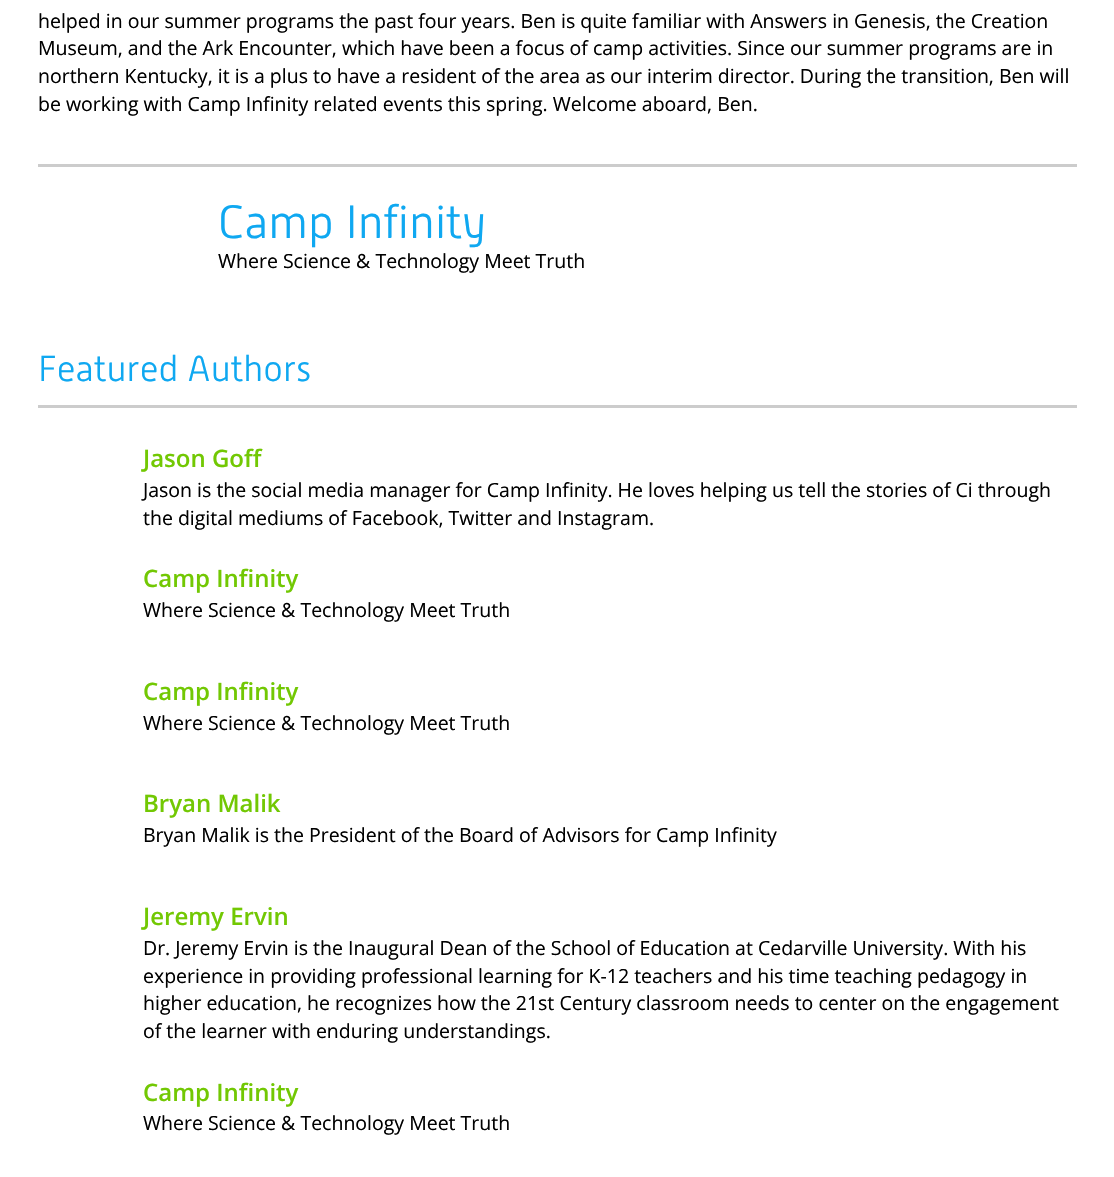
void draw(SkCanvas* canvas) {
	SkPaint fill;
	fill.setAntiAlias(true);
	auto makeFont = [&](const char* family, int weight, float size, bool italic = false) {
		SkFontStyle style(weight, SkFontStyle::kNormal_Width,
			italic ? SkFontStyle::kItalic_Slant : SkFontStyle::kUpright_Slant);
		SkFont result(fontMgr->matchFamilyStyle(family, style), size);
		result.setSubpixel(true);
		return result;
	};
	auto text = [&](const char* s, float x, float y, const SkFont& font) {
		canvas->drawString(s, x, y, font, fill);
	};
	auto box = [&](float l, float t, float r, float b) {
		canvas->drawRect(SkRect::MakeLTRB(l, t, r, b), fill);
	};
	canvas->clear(0xFFFFFFFF);
	fill.setColor(0xFFCCCCCC);
	box(38, 164, 1077, 167);
	box(38, 405, 1077, 408);
	auto font1 = makeFont("Open Sans", 400, 19.5f);
	fill.setColor(0xFF000000);
	text("helped in our summer programs the past four years. Ben is quite familiar with Answers in Genesis, the Creation", 38, 28, font1);
	text("Museum, and the Ark Encounter, which have been a focus of camp activities. Since our summer programs are in", 38, 55, font1);
	text("northern Kentucky, it is a plus to have a resident of the area as our interim director. During the transition, Ben will", 38, 83, font1);
	text("be working with Camp Infinity related events this spring. Welcome aboard, Ben.", 38, 111, font1);
	auto font2 = makeFont("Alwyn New", 300, 46.5f);
	fill.setColor(0xFF0FA8F1);
	text("Camp Infinity", 218, 238, font2);
	fill.setColor(0xFF000000);
	text("Where Science & Technology Meet Truth", 218, 268, font1);
	auto font3 = makeFont("Alwyn New", 300, 36);
	fill.setColor(0xFF0FA8F1);
	text("Featured Authors", 38, 381, font3);
	auto font4 = makeFont("Open Sans", 600, 24);
	fill.setColor(0xFF72C803);
	text("Jason Goff", 143, 467, font4);
	fill.setColor(0xFF000000);
	text("Jason is the social media manager for Camp Infinity. He loves helping us tell the stories of Ci through", 143, 497, font1);
	text("the digital mediums of Facebook, Twitter and Instagram.", 143, 525, font1);
	fill.setColor(0xFF72C803);
	text("Camp Infinity", 143, 587, font4);
	fill.setColor(0xFF000000);
	text("Where Science & Technology Meet Truth", 143, 617, font1);
	fill.setColor(0xFF72C803);
	text("Camp Infinity", 143, 700, font4);
	fill.setColor(0xFF000000);
	text("Where Science & Technology Meet Truth", 143, 730, font1);
	fill.setColor(0xFF72C803);
	text("Bryan Malik", 143, 812, font4);
	fill.setColor(0xFF000000);
	text("Bryan Malik is the President of the Board of Advisors for Camp Infinity", 143, 842, font1);
	fill.setColor(0xFF72C803);
	text("Jeremy Ervin", 143, 925, font4);
	fill.setColor(0xFF000000);
	text("Dr. Jeremy Ervin is the Inaugural Dean of the School of Education at Cedarville University. With his", 143, 955, font1);
	text("experience in providing professional learning for K-12 teachers and his time teaching pedagogy in", 143, 983, font1);
	text("higher education, he recognizes how the 21st Century classroom needs to center on the engagement", 143, 1010, font1);
	text("of the learner with enduring understandings.", 143, 1038, font1);
	fill.setColor(0xFF72C803);
	text("Camp Infinity", 143, 1101, font4);
	fill.setColor(0xFF000000);
	text("Where Science & Technology Meet Truth", 143, 1130, font1);
}
